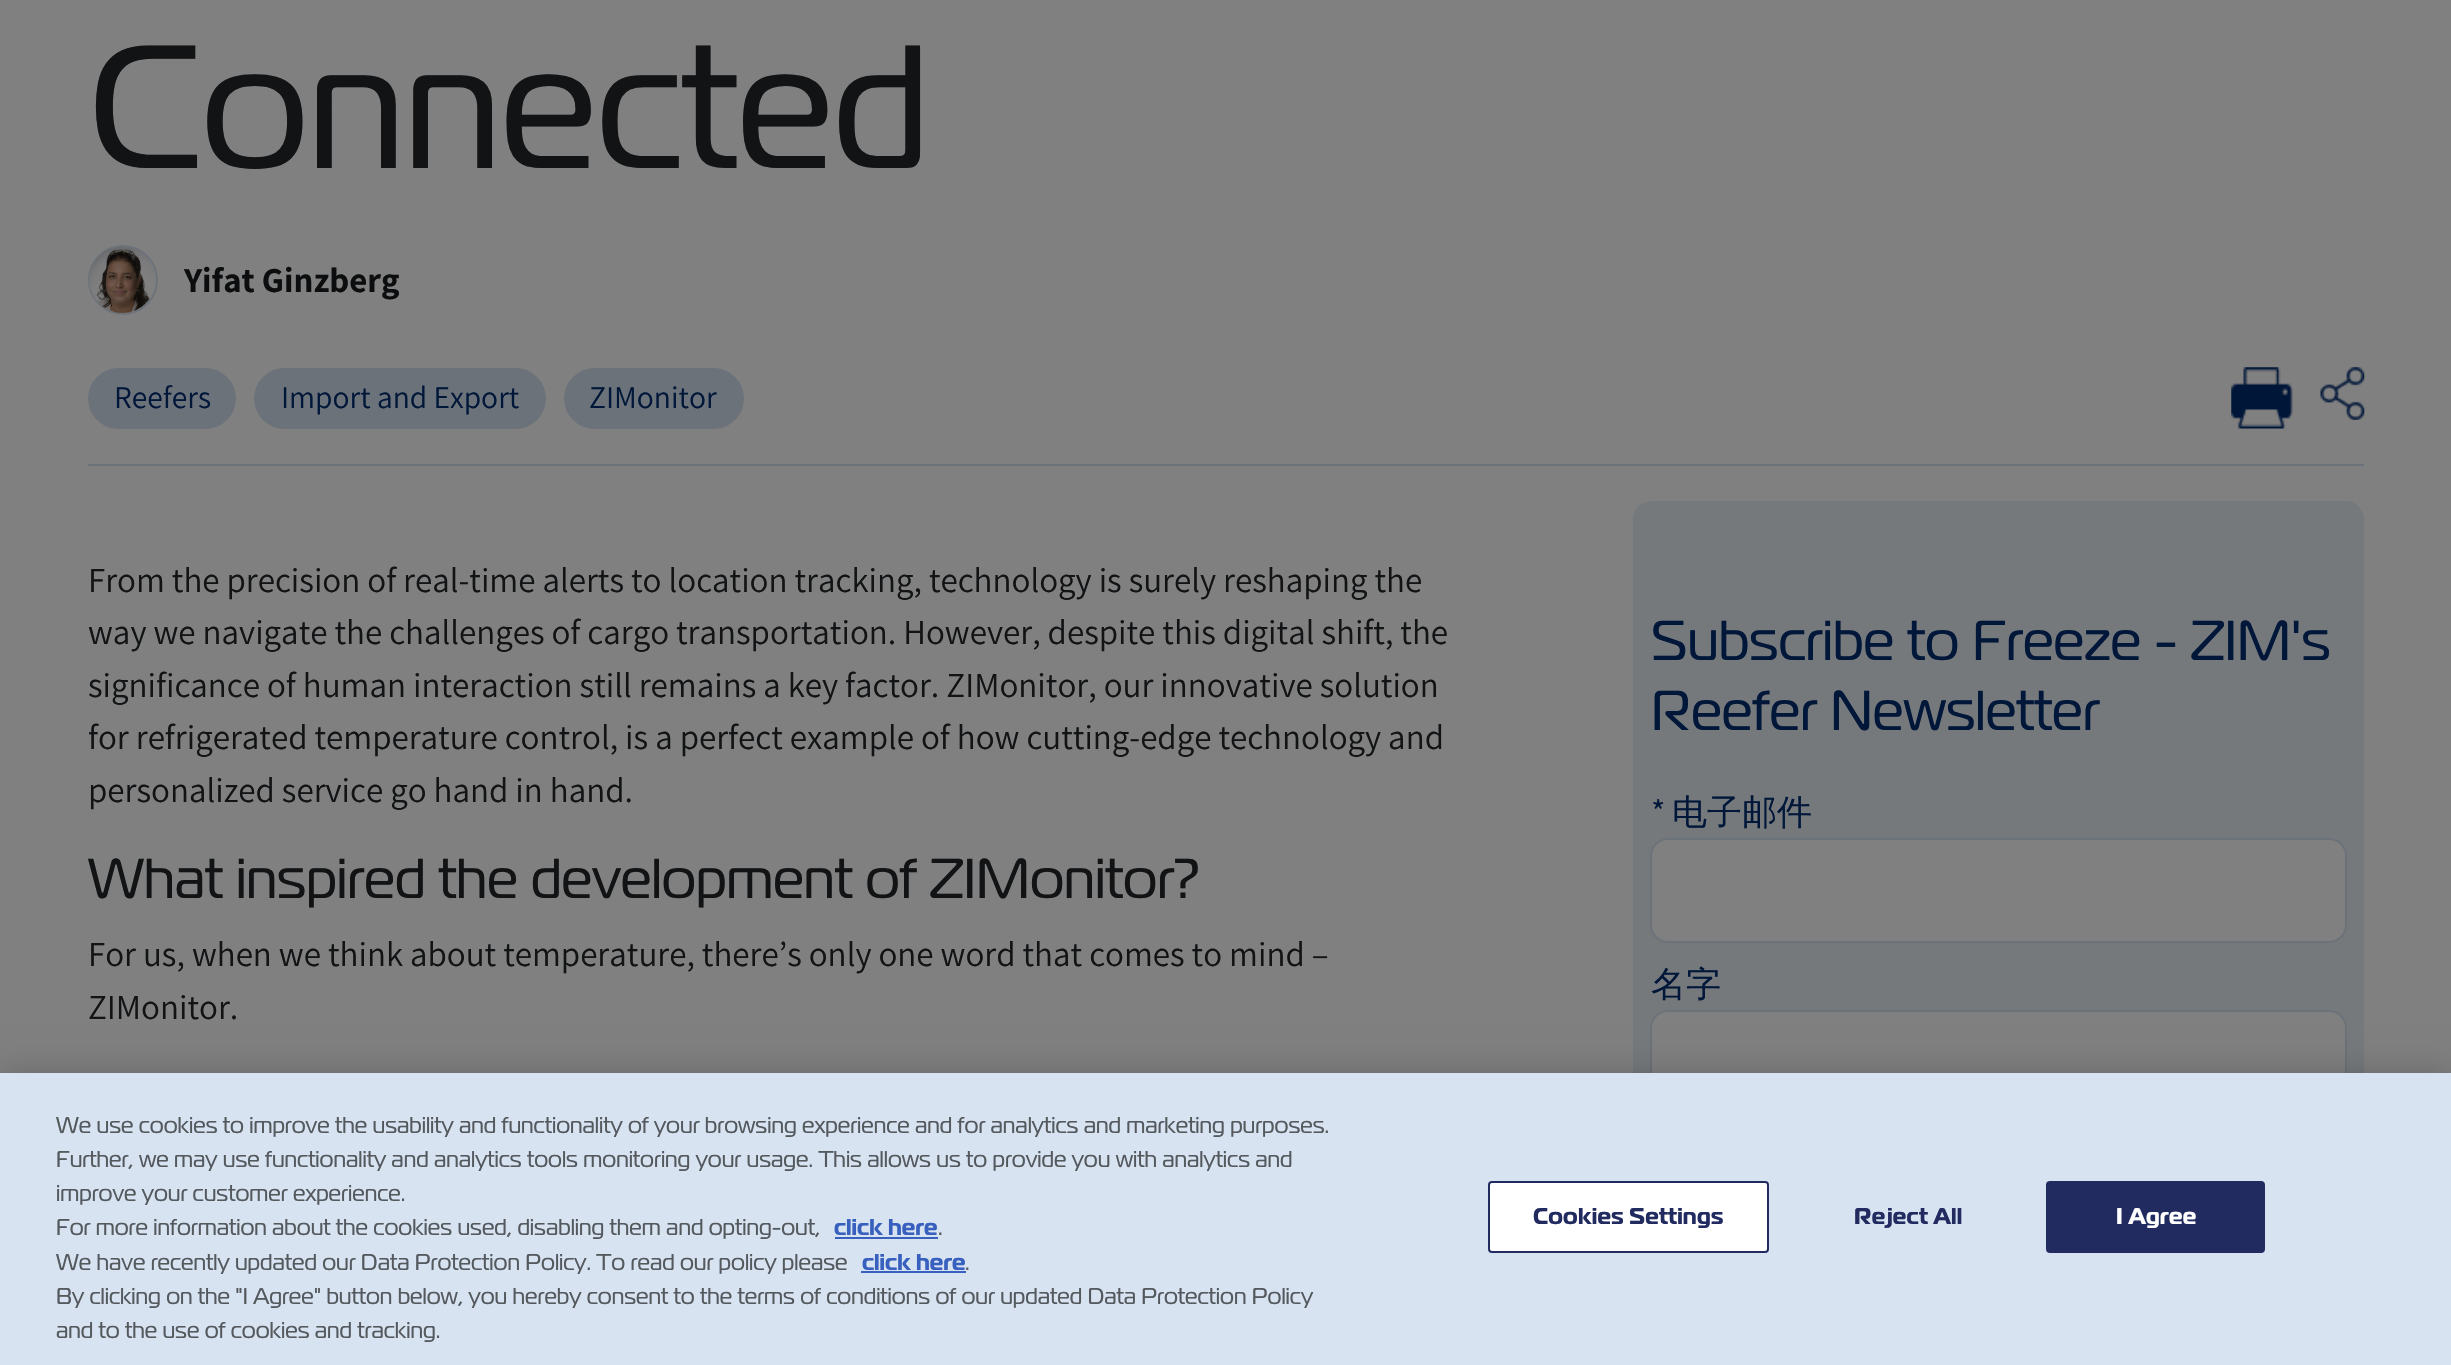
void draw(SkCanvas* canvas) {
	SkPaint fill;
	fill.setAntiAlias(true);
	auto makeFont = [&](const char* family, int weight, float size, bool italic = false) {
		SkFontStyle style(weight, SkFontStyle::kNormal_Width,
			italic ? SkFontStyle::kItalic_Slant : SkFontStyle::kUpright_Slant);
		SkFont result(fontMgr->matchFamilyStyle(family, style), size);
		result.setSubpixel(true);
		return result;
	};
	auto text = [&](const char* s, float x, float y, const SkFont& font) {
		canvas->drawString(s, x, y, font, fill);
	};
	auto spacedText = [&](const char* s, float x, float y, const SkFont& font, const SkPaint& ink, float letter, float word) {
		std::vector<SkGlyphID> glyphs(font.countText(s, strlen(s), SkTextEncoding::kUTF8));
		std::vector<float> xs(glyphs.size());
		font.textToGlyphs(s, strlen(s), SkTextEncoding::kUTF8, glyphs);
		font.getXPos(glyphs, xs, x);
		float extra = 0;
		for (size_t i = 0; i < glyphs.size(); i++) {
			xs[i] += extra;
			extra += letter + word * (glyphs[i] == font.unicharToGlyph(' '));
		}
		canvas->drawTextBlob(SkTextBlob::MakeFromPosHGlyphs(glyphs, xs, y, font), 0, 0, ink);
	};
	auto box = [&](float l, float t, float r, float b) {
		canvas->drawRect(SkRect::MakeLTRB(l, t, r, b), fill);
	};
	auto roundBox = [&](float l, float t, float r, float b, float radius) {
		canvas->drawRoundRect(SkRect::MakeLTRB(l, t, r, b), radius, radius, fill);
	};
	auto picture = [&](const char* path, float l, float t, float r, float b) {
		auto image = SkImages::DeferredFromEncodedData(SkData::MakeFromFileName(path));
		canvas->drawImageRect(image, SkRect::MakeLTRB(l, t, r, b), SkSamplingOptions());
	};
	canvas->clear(0xFF808080);
	fill.setStyle(SkPaint::kStroke_Style);
	fill.setStrokeWidth(2);
	fill.setColor(0xFF6C7279);
	canvas->drawCircle(123, 280, 34, fill);
	picture("image0.png", 89, 246, 155, 313);
	fill.setStyle(SkPaint::kFill_Style);
	box(88, 464, 2364, 466);
	roundBox(88, 368, 236, 429, 30.5f);
	roundBox(254, 368, 546, 429, 30.5f);
	roundBox(564, 368, 744, 429, 30.5f);
	picture("image1.png", 2231, 367, 2293, 429);
	picture("image2.png", 2320, 367, 2365, 420);
	fill.setColor(0xFF76797C);
	roundBox(1633, 501, 2364, 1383, 18);
	fill.setColor(0xFF808080);
	canvas->drawRoundRect(SkRect::MakeLTRB(1651, 839, 2346, 942), 17, 17, fill);
	fill.setStyle(SkPaint::kStroke_Style);
	fill.setColor(0xFF6C7279);
	canvas->drawRoundRect(SkRect::MakeLTRB(1651, 839, 2346, 942), 17, 17, fill);
	fill.setStyle(SkPaint::kFill_Style);
	fill.setColor(0xFF808080);
	canvas->drawRoundRect(SkRect::MakeLTRB(1651, 1011, 2346, 1114), 17, 17, fill);
	fill.setStyle(SkPaint::kStroke_Style);
	fill.setColor(0xFF6C7279);
	canvas->drawRoundRect(SkRect::MakeLTRB(1651, 1011, 2346, 1114), 17, 17, fill);
	fill.setStyle(SkPaint::kFill_Style);
	fill.setColor(0x33000000);
	fill.setMaskFilter(SkMaskFilter::MakeBlur(kNormal_SkBlurStyle, 16));
	canvas->drawRect(SkRect::MakeLTRB(0, 1073, 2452, 1365), fill);
	fill.setMaskFilter(nullptr);
	fill.setColor(0xFFD8E3F2);
	box(0, 1073, 2451, 1365);
	fill.setColor(0xFF3860BE);
	box(835, 1237, 938, 1239);
	box(861, 1271, 966, 1273);
	fill.setColor(0xFFFFFFFF);
	canvas->drawRoundRect(SkRect::MakeLTRB(1489, 1182, 1768, 1252), 3, 3, fill);
	fill.setStyle(SkPaint::kStroke_Style);
	fill.setColor(0xFF212B60);
	canvas->drawRoundRect(SkRect::MakeLTRB(1489, 1182, 1768, 1252), 3, 3, fill);
	fill.setStyle(SkPaint::kFill_Style);
	canvas->drawRoundRect(SkRect::MakeLTRB(2047, 1182, 2264, 1252), 3, 3, fill);
	fill.setStyle(SkPaint::kStroke_Style);
	canvas->drawRoundRect(SkRect::MakeLTRB(2047, 1182, 2264, 1252), 3, 3, fill);
	auto font1 = makeFont("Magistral", 400, 175);
	fill.setStyle(SkPaint::kFill_Style);
	fill.setColor(0xFF111315);
	text("Connected", 88, 168, font1);
	auto font2 = makeFont("Assistant", 700, 35);
	fill.setColor(0xFF0C0D0E);
	text("Yifat Ginzberg", 184, 292, font2);
	auto font3 = makeFont("Assistant", 400, 31.5f);
	fill.setColor(0xFF001739);
	text("Reefers", 114, 408, font3);
	text("Import and Export", 281, 408, font3);
	text("ZIMonitor", 589, 408, font3);
	auto font4 = makeFont("Assistant", 400, 35);
	fill.setColor(0xFF111315);
	text("From the precision of real-time alerts to location tracking, technology is surely reshaping the", 88, 592, font4);
	text("way we navigate the challenges of cargo transportation. However, despite this digital shift, the", 88, 644, font4);
	text("significance of human interaction still remains a key factor. ZIMonitor, our innovative solution", 88, 697, font4);
	text("for refrigerated temperature control, is a perfect example of how cutting-edge technology and", 88, 749, font4);
	text("personalized service go hand in hand.", 88, 802, font4);
	auto font5 = makeFont("Magistral", 400, 56);
	text("What inspired the development of ZIMonitor?", 88, 898, font5);
	text("For us, when we think about temperature, there’s only one word that comes to mind –", 88, 966, font4);
	text("ZIMonitor.", 88, 1019, font4);
	fill.setColor(0xFF001739);
	text("Subscribe to Freeze - ZIM's", 1651, 660, font5);
	text("Reefer Newsletter", 1651, 730, font5);
	text("*", 1651, 824, font4);
	auto font6 = makeFont("WenQuanYi Zen Hei", 500, 35);
	text("电子邮件", 1672, 824, font6);
	text("名字", 1651, 996, font6);
	auto font7 = makeFont("Magistral", 400, 22.75f);
	fill.setColor(0xFF54595E);
	text("We use cookies to improve the usability and functionality of your browsing experience and for analytics and marketing purposes.", 56, 1133, font7);
	text("Further, we may use functionality and analytics tools monitoring your usage. This allows us to provide you with analytics and", 56, 1167, font7);
	text("improve your customer experience.", 56, 1201, font7);
	text("For more information about the cookies used, disabling them and opting-out,", 56, 1235, font7);
	auto font8 = makeFont("Magistral", 700, 22.75f);
	fill.setColor(0xFF3860BE);
	text("click here", 834, 1235, font8);
	fill.setColor(0xFF54595E);
	text(".", 938, 1235, font7);
	text("We have recently updated our Data Protection Policy. To read our policy please", 56, 1270, font7);
	fill.setColor(0xFF3860BE);
	text("click here", 862, 1270, font8);
	fill.setColor(0xFF54595E);
	text(".", 965, 1270, font7);
	text("By clicking on the \"I Agree\" button below, you hereby consent to the terms of conditions of our updated Data Protection Policy", 56, 1304, font7);
	text("and to the use of cookies and tracking.", 56, 1338, font7);
	fill.setColor(0xFF212B60);
	spacedText("Cookies Settings", 1533, 1224, font8, fill, 0.25f, 0);
	spacedText("Reject All", 1854, 1224, font8, fill, 0.25f, 0);
	fill.setColor(0xFFFFFFFF);
	spacedText("I Agree", 2116, 1224, font8, fill, 0.25f, 0);
}
